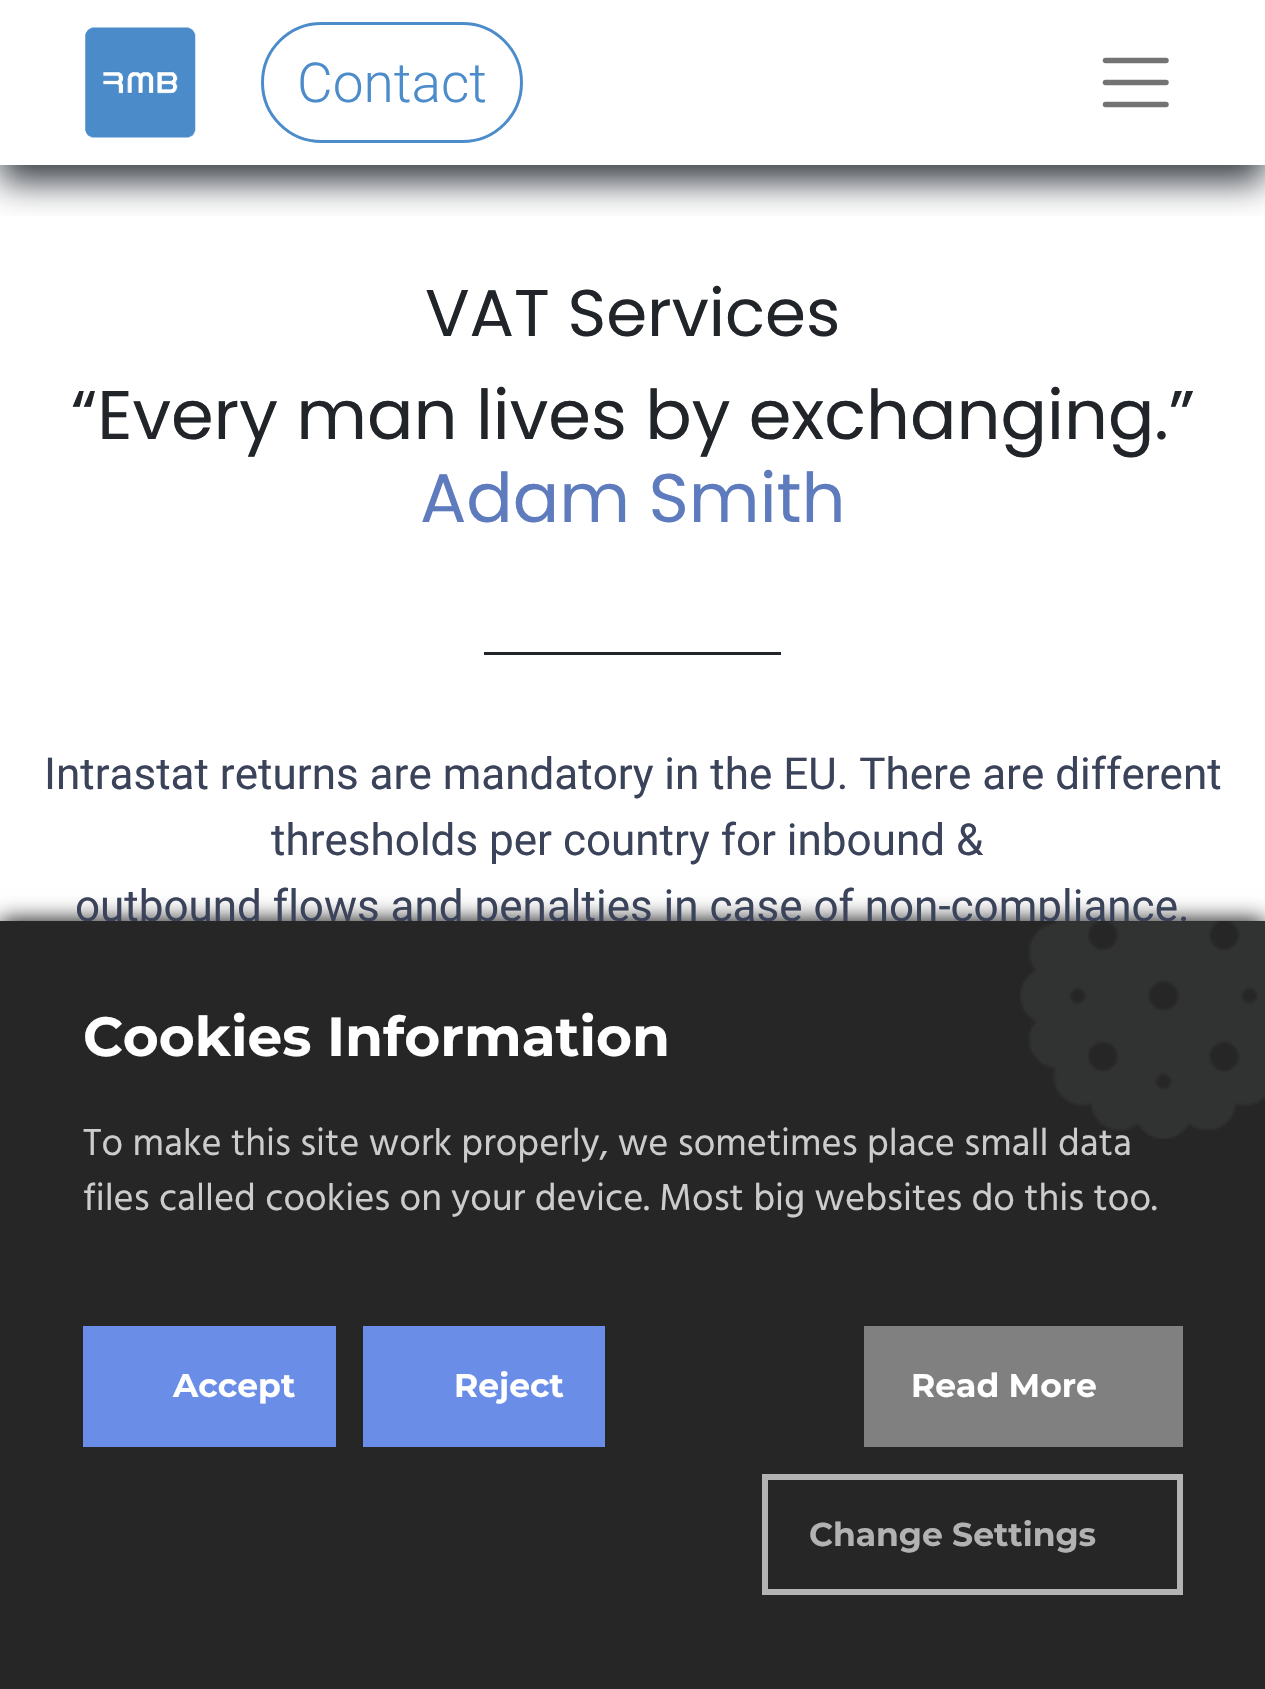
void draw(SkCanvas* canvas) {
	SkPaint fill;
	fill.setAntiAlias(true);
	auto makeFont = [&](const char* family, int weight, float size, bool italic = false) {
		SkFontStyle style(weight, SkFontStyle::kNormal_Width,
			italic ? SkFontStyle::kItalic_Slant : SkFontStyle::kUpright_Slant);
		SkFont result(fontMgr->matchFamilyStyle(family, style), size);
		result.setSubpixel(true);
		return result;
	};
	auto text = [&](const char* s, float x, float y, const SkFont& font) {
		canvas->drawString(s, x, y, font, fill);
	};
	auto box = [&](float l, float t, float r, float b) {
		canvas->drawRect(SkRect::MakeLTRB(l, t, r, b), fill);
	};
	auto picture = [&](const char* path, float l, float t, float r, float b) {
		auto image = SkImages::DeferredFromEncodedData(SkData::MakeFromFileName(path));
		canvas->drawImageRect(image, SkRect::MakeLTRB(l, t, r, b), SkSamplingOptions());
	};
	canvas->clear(0xFFFFFFFF);
	canvas->save();
	canvas->clipRect(SkRect::MakeLTRB(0, 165, 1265, 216));
	fill.setColor(0xFF383E45);
	fill.setMaskFilter(SkMaskFilter::MakeBlur(kNormal_SkBlurStyle, 16.5f));
	canvas->drawRect(SkRect::MakeLTRB(0, 17, 1265, 182), fill);
	fill.setMaskFilter(nullptr);
	canvas->restore();
	picture("image0.png", 85, 27, 196, 138);
	fill.setStyle(SkPaint::kStroke_Style);
	fill.setStrokeWidth(3);
	fill.setColor(0xFF4C8CCA);
	canvas->drawRoundRect(SkRect::MakeLTRB(262.5f, 23.5f, 521.5f, 141.5f), 59, 59, fill);
	fill.setStrokeWidth(5.5f);
	fill.setStrokeCap(SkPaint::kRound_Cap);
	fill.setColor(0xFF737373);
	canvas->drawPath(SkPathBuilder().moveTo(1105.5f, 60.5f).lineTo(1166, 60.5f).moveTo(1105.5f, 82.5f).lineTo(1166, 82.5f).moveTo(1105.5f, 104.5f).lineTo(1166, 104.5f).detach(), fill);
	fill.setStyle(SkPaint::kFill_Style);
	fill.setColor(0xFF212529);
	box(484, 652, 781, 655);
	fill.setColor(0xFF000000);
	fill.setMaskFilter(SkMaskFilter::MakeBlur(kNormal_SkBlurStyle, 11));
	canvas->drawRect(SkRect::MakeLTRB(0, 921, 1265, 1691), fill);
	fill.setMaskFilter(nullptr);
	auto font1 = makeFont("Roboto", 300, 55);
	fill.setColor(0xFF4C8CCA);
	text("Contact", 297, 102, font1);
	auto font2 = makeFont("Poppins", 400, 66);
	fill.setColor(0xFF212529);
	text("VAT Services", 425, 336, font2);
	auto font3 = makeFont("Poppins", 400, 68.75f);
	text("“Every man lives by exchanging.”", 71, 439, font3);
	fill.setColor(0xFF5E7BBD);
	text("Adam Smith", 420, 522, font3);
	auto font4 = makeFont("Roboto", 400, 44);
	fill.setColor(0xFF3B435A);
	text("Intrastat returns are mandatory in the EU. There are different", 44, 789, font4);
	text("thresholds per country for inbound &", 271, 855, font4);
	text("outbound flows and penalties in case of non-compliance.", 75, 921, font4);
	fill.setColor(0xFF262626);
	box(0, 921, 1265, 1689);
	auto font5 = makeFont("Montserrat", 700, 55);
	fill.setColor(0xFFFFFFFF);
	text("Cookies Information", 83, 1056, font5);
	auto font6 = makeFont("Hind", 400, 38.5f);
	fill.setColor(0xFFCCCCCC);
	text("To make this site work properly, we sometimes place small data", 83, 1155, font6);
	picture("image1.png", 1020, 921, 1265, 1139);
	text("files called cookies on your device. Most big websites do this too.", 83, 1210, font6);
	fill.setColor(0xFF6A8EE7);
	box(83, 1326, 336, 1447);
	auto font7 = makeFont("Montserrat", 700, 33);
	fill.setColor(0xFFFFFFFF);
	text("Accept", 173, 1397, font7);
	fill.setColor(0xFF6A8EE7);
	box(363, 1326, 605, 1447);
	fill.setColor(0xFFFFFFFF);
	text("Reject", 454, 1397, font7);
	fill.setColor(0xFF808080);
	box(864, 1326, 1183, 1447);
	fill.setColor(0xFFFFFFFF);
	text("Read More", 911, 1397, font7);
	fill.setStyle(SkPaint::kStroke_Style);
	fill.setStrokeWidth(6);
	fill.setStrokeCap(SkPaint::kButt_Cap);
	fill.setColor(0xFFB3B3B3);
	canvas->drawRect(SkRect::MakeLTRB(765, 1477, 1180, 1592), fill);
	fill.setStyle(SkPaint::kFill_Style);
	fill.setColor(0xFFB2B2B2);
	text("Change Settings", 809, 1546, font7);
}
